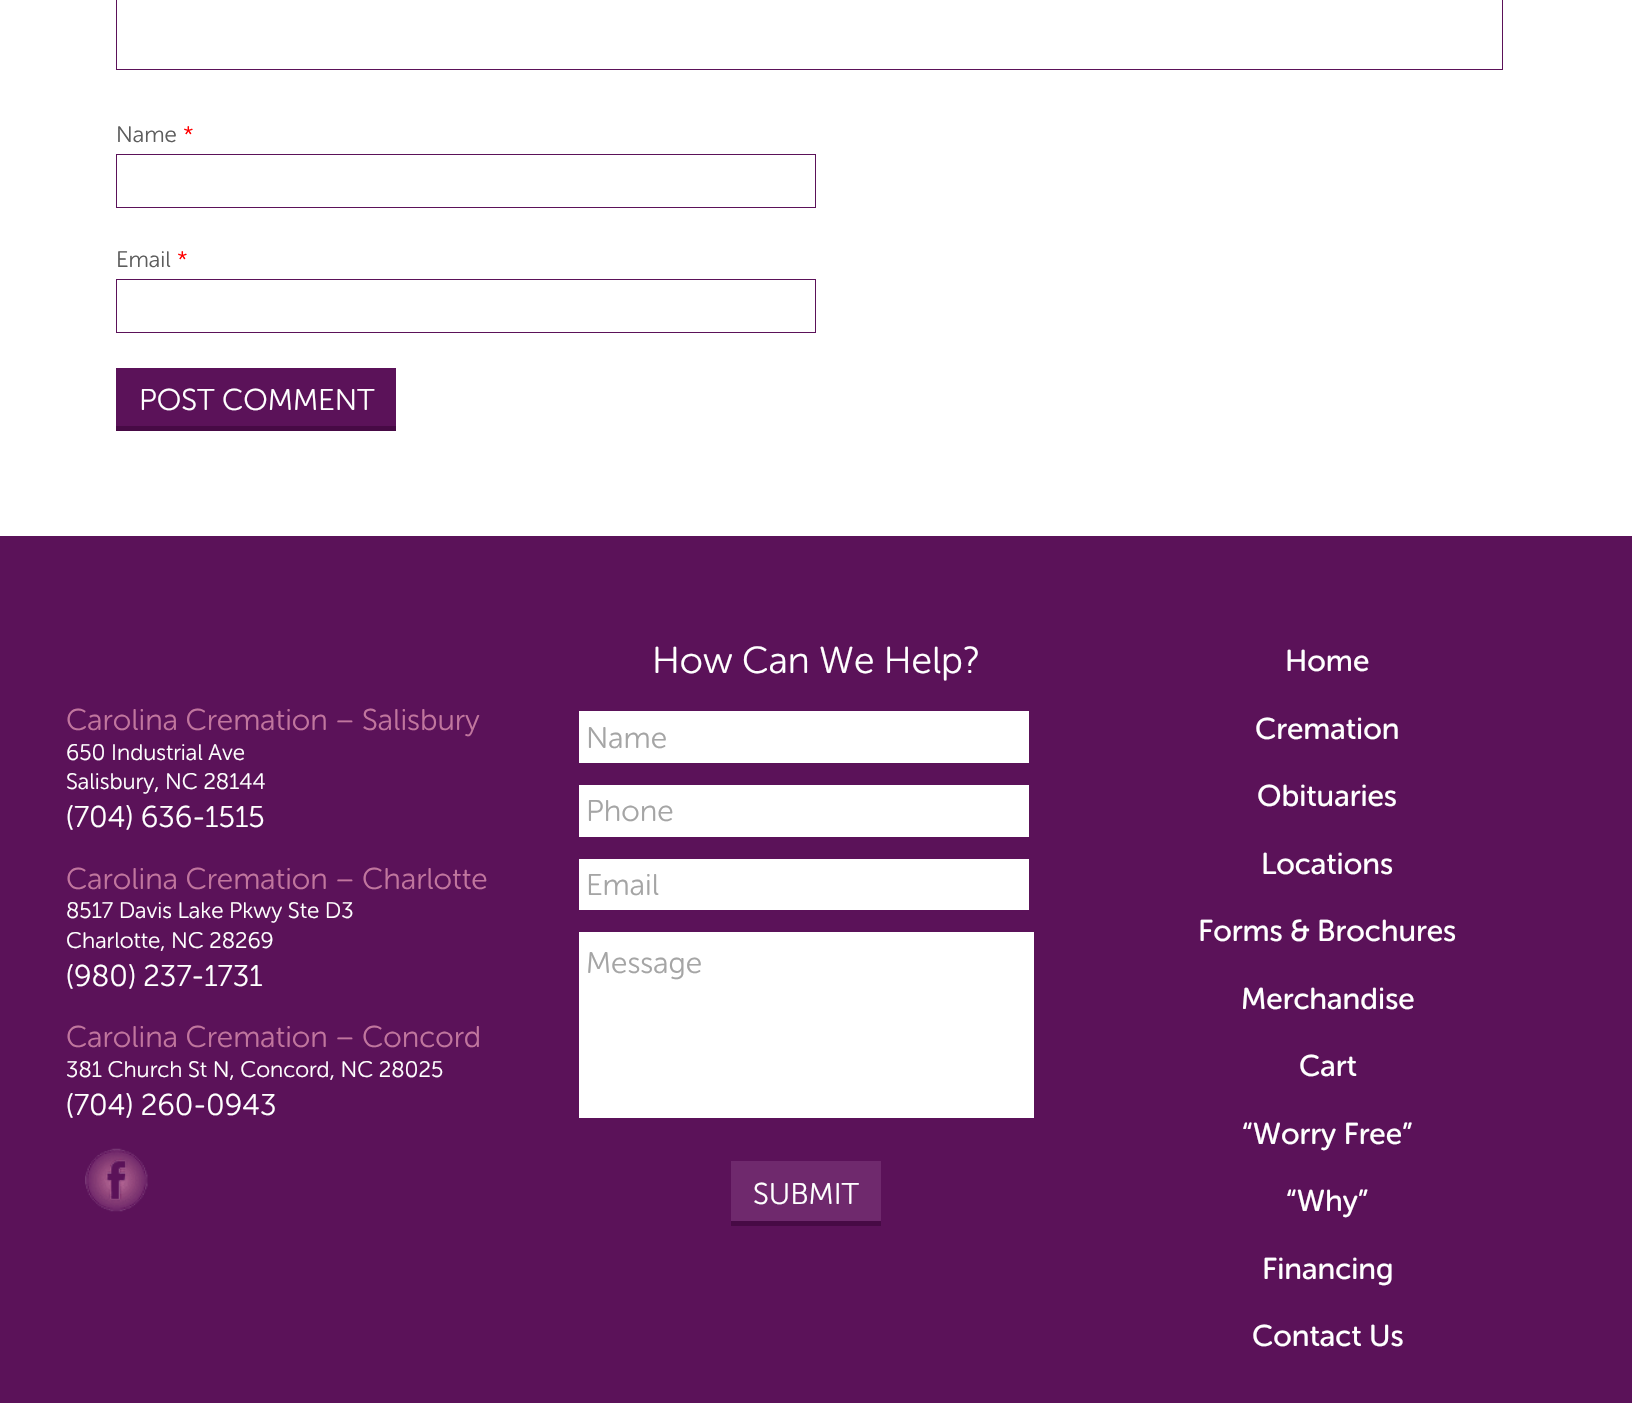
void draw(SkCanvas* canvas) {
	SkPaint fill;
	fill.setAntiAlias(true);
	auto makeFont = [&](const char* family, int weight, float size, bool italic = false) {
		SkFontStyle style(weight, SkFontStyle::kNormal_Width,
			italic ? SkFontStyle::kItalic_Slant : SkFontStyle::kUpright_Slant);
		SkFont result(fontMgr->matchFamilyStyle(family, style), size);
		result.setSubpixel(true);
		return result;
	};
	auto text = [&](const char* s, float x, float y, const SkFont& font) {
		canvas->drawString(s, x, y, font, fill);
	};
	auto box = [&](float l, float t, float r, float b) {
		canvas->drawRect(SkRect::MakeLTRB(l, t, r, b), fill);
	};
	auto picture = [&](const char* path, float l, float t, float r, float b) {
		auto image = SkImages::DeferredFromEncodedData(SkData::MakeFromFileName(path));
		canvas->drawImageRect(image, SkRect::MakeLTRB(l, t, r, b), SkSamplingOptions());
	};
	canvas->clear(0xFFFFFFFF);
	fill.setStyle(SkPaint::kStroke_Style);
	fill.setStrokeWidth(1);
	fill.setColor(0xFF5B1259);
	canvas->drawRect(SkRect::MakeLTRB(116.5f, -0.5f, 1502.5f, 69.5f), fill);
	canvas->drawRect(SkRect::MakeLTRB(116.5f, 154.5f, 815.5f, 207.5f), fill);
	canvas->drawRect(SkRect::MakeLTRB(116.5f, 279.5f, 815.5f, 332.5f), fill);
	fill.setStyle(SkPaint::kFill_Style);
	box(116, 368, 396, 426);
	fill.setColor(0xFF470A45);
	box(116, 426, 396, 431);
	fill.setColor(0xFF5B1259);
	box(0, 536, 1632, 1403);
	picture("image0.png", 85, 1148, 148, 1212);
	fill.setColor(0xFFFFFFFF);
	box(579, 711, 1029, 763);
	box(579, 785, 1029, 837);
	box(579, 859, 1029, 910);
	box(579, 932, 1034, 1118);
	fill.setColor(0xFF6F296D);
	box(731, 1161, 881, 1221);
	fill.setColor(0xFF470A45);
	box(731, 1221, 881, 1226);
	auto font1 = makeFont("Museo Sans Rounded", 300, 22.5f);
	fill.setColor(0xFF5D5D5D);
	text("Name", 116, 142, font1);
	fill.setColor(0xFFFF0000);
	text("*", 183, 142, font1);
	fill.setColor(0xFF5D5D5D);
	text("Email", 116, 267, font1);
	fill.setColor(0xFFFF0000);
	text("*", 177, 267, font1);
	auto font2 = makeFont("Museo Sans Rounded", 300, 30);
	fill.setColor(0xFFFFFFFF);
	text("POST COMMENT", 139, 410, font2);
	fill.setColor(0xFFC1769E);
	text("Carolina Cremation – Salisbury", 66, 730, font2);
	fill.setColor(0xFFFFFFFF);
	text("650 Industrial Ave", 66, 760, font1);
	text("Salisbury, NC 28144", 66, 789, font1);
	text("(704) 636-1515", 66, 827, font2);
	fill.setColor(0xFFC1769E);
	text("Carolina Cremation – Charlotte", 66, 889, font2);
	fill.setColor(0xFFFFFFFF);
	text("8517 Davis Lake Pkwy Ste D3", 66, 918, font1);
	text("Charlotte, NC 28269", 66, 948, font1);
	text("(980) 237-1731", 66, 986, font2);
	fill.setColor(0xFFC1769E);
	text("Carolina Cremation – Concord", 66, 1047, font2);
	fill.setColor(0xFFFFFFFF);
	text("381 Church St N, Concord, NC 28025", 66, 1077, font1);
	text("(704) 260-0943", 66, 1115, font2);
	auto font3 = makeFont("Museo Sans Rounded", 300, 37.5f);
	text("How Can We Help?", 652, 673, font3);
	fill.setColor(0xFFA5A5A5);
	text("Name", 586, 748, font2);
	text("Phone", 586, 821, font2);
	text("Email", 586, 895, font2);
	text("Message", 586, 973, font2);
	fill.setColor(0xFFFFFFFF);
	text("SUBMIT", 753, 1204, font2);
	auto font4 = makeFont("Museo Sans Rounded", 400, 30);
	text("Home", 1285, 671, font4);
	text("Cremation", 1255, 739, font4);
	text("Obituaries", 1257, 806, font4);
	text("Locations", 1261, 874, font4);
	text("Forms & Brochures", 1198, 941, font4);
	text("Merchandise", 1241, 1009, font4);
	text("Cart", 1299, 1076, font4);
	text("“Worry Free”", 1242, 1144, font4);
	text("“Why”", 1286, 1211, font4);
	text("Financing", 1262, 1279, font4);
	text("Contact Us", 1252, 1346, font4);
}
